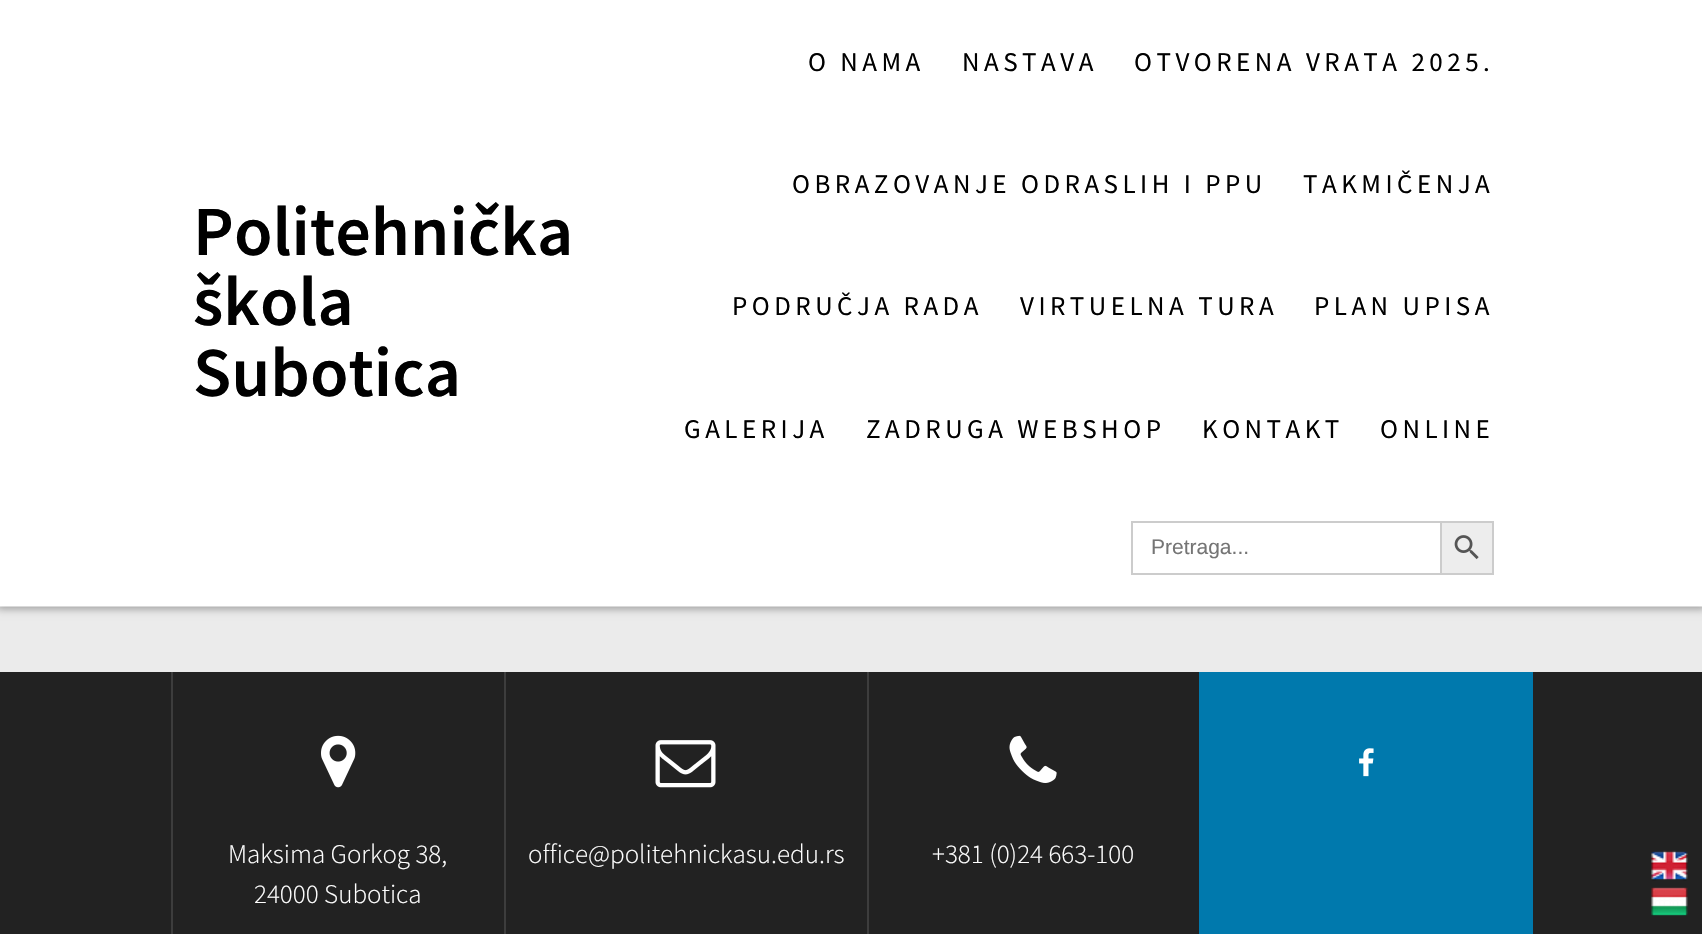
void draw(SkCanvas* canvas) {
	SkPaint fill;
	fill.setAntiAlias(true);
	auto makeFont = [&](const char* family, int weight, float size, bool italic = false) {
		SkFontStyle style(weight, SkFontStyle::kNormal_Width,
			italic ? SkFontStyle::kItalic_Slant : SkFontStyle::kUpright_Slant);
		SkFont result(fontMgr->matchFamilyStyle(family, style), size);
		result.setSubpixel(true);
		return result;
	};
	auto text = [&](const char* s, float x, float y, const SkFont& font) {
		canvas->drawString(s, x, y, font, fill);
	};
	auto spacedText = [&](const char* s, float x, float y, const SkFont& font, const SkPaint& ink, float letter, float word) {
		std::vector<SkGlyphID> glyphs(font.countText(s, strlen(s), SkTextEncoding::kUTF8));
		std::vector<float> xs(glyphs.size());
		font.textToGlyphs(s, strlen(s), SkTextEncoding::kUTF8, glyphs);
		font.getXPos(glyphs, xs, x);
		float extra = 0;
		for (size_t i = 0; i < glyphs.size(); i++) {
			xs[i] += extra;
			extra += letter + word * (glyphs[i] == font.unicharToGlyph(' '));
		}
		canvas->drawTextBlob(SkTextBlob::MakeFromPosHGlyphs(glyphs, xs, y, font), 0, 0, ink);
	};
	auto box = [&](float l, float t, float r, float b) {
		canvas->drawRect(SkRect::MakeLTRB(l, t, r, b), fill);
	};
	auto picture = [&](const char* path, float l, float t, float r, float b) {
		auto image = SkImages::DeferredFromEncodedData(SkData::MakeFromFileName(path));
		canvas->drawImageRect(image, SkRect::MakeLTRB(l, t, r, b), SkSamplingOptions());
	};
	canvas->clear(0xFFEBEBEB);
	fill.setColor(0x54000000);
	fill.setMaskFilter(SkMaskFilter::MakeBlur(kNormal_SkBlurStyle, 4));
	canvas->drawRect(SkRect::MakeLTRB(-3, -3, 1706, 609), fill);
	fill.setMaskFilter(nullptr);
	fill.setColor(0xFFFFFFFF);
	box(0, 0, 1702, 606);
	fill.setColor(0x80FFFFFF);
	box(0, 606, 1702, 607);
	fill.setColor(0xFFCCCCCC);
	box(1131, 521, 1440, 523);
	box(1131, 573, 1440, 575);
	box(1131, 521, 1133, 575);
	fill.setColor(0xFFEDEDED);
	canvas->drawRect(SkRect::MakeLTRB(1441, 522, 1493, 574), fill);
	fill.setStyle(SkPaint::kStroke_Style);
	fill.setStrokeWidth(2);
	fill.setColor(0xFFCCCCCC);
	canvas->drawRect(SkRect::MakeLTRB(1441, 522, 1493, 574), fill);
	picture("image0.png", 1454, 535, 1479, 560);
	fill.setStyle(SkPaint::kFill_Style);
	fill.setColor(0xFF222222);
	box(0, 672, 1702, 934);
	fill.setColor(0xFF3D3D3D);
	box(171, 672, 173, 934);
	picture("image1.png", 321, 735, 356, 788);
	box(504, 672, 506, 934);
	picture("image2.png", 655, 740, 716, 788);
	box(867, 672, 869, 934);
	picture("image3.png", 1009, 735, 1057, 783);
	fill.setColor(0xFF0079AD);
	box(1199, 672, 1533, 934);
	picture("image4.png", 1359, 748, 1374, 777);
	picture("image5.png", 1651, 850, 1688, 881);
	picture("image6.png", 1651, 887, 1688, 916);
	auto font1 = makeFont("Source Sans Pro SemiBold", 600, 70.25f);
	fill.setColor(0xFF000000);
	text("Politehnička", 193, 255, font1);
	text("škola", 193, 325, font1);
	text("Subotica", 193, 396, font1);
	auto font2 = makeFont("Source Sans Pro", 400, 27);
	spacedText("O NAMA", 808, 71, font2, fill, 4.5f, 0);
	spacedText("NASTAVA", 962, 71, font2, fill, 4.5f, 0);
	spacedText("OTVORENA VRATA 2025.", 1134, 71, font2, fill, 4.5f, 0);
	spacedText("OBRAZOVANJE ODRASLIH I PPU", 792, 193, font2, fill, 4.5f, 0);
	spacedText("TAKMIČENJA", 1303, 193, font2, fill, 4.5f, 0);
	spacedText("PODRUČJA RADA", 732, 315, font2, fill, 4.5f, 0);
	spacedText("VIRTUELNA TURA", 1020, 315, font2, fill, 4.5f, 0);
	spacedText("PLAN UPISA", 1314, 315, font2, fill, 4.5f, 0);
	spacedText("GALERIJA", 684, 438, font2, fill, 4.5f, 0);
	spacedText("ZADRUGA WEBSHOP", 866, 438, font2, fill, 4.5f, 0);
	spacedText("KONTAKT", 1202, 438, font2, fill, 4.5f, 0);
	spacedText("ONLINE", 1380, 438, font2, fill, 4.5f, 0);
	auto font3 = makeFont("Liberation Sans", 400, 21);
	fill.setColor(0xFF757575);
	text("Pretraga...", 1151, 554, font3);
	auto font4 = makeFont("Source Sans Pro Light", 300, 27);
	fill.setColor(0xFFFFFFFF);
	text("Maksima Gorkog 38,", 228, 863, font4);
	text("24000 Subotica", 254, 903, font4);
	text("office@politehnickasu.edu.rs", 528, 863, font4);
	text("+381 (0)24 663-100", 932, 863, font4);
}
